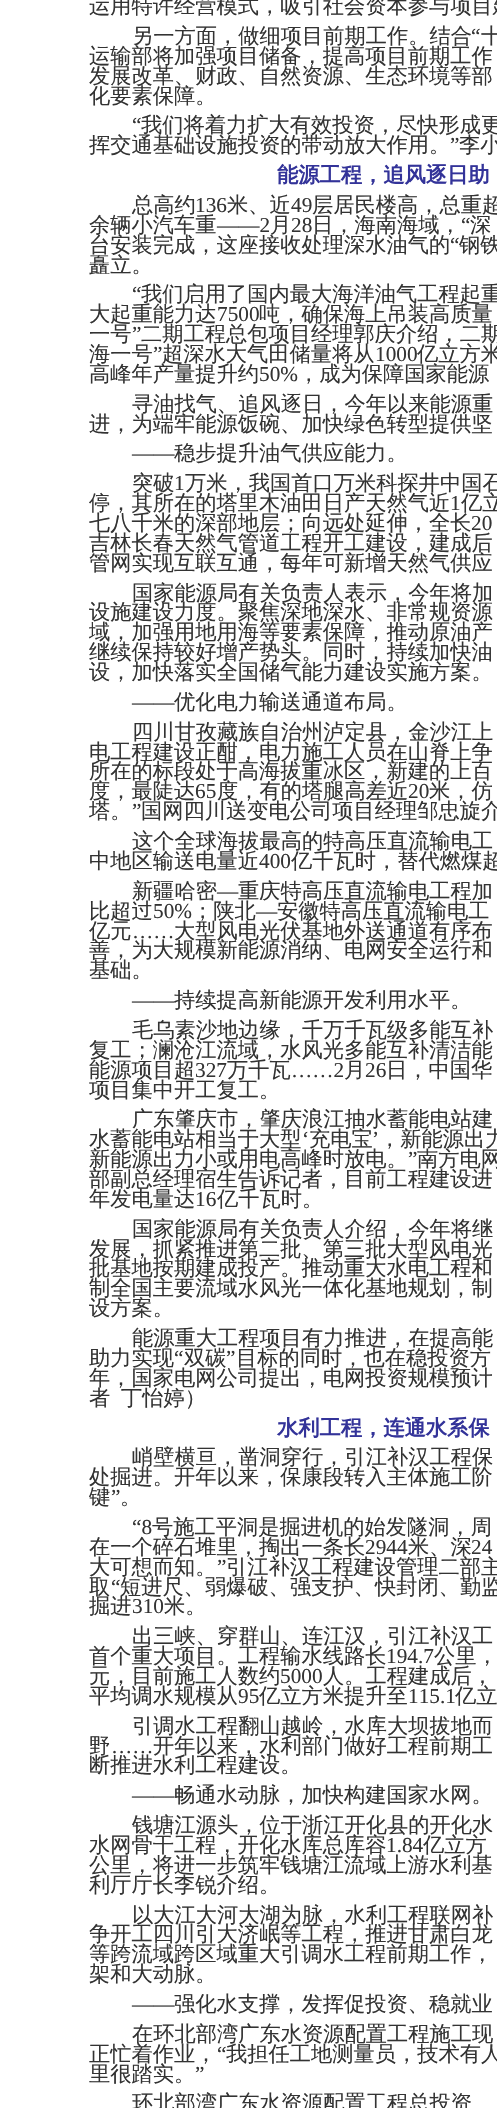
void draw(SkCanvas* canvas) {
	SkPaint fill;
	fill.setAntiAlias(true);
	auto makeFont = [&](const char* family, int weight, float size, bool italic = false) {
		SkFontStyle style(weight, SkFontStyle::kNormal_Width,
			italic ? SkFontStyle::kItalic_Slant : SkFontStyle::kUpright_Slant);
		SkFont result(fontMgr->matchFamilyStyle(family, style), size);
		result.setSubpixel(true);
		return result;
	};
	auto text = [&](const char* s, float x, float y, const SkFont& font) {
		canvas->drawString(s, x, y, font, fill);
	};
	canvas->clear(0xFFFFFFFF);
	auto font1 = makeFont("WenQuanYi Zen Hei", 500, 21.25f);
	fill.setColor(0xFF333333);
	text("运用特许经营模式，吸引社会资本参与项目建", 89, 13, font1);
	text("另一方面，做细项目前期工作。结合", 132, 43, font1);
	auto font2 = makeFont("Liberation Serif", 400, 21.25f);
	text("“", 471, 43, font2);
	text("十", 481, 43, font1);
	text("运输部将加强项目储备，提高项目前期工作", 89, 63, font1);
	text("发展改革、财政、自然资源、生态环境等部", 89, 83, font1);
	text("化要素保障。", 89, 103, font1);
	text("“", 132, 132, font2);
	text("我们将着力扩大有效投资，尽快形成更", 141, 132, font1);
	text("挥交通基础设施投资的带动放大作用。", 89, 152, font1);
	text("”", 450, 152, font2);
	text("李小", 459, 152, font1);
	auto font3 = makeFont("WenQuanYi Zen Hei", 700, 21.25f);
	fill.setColor(0xFF333399);
	text("能源工程，追风逐日助", 277, 182, font3);
	fill.setColor(0xFF333333);
	text("总高约", 132, 212, font1);
	text("136", 195, 212, font2);
	text("米、近", 227, 212, font1);
	text("49", 291, 212, font2);
	text("层居民楼高，总重超", 312, 212, font1);
	text("余辆小汽车重", 89, 232, font1);
	text("——2", 217, 232, font2);
	text("月", 270, 232, font1);
	text("28", 291, 232, font2);
	text("日，海南海域，", 312, 232, font1);
	text("“", 461, 232, font2);
	text("深", 470, 232, font1);
	text("台安装完成，这座接收处理深水油气的", 89, 252, font1);
	text("“", 450, 252, font2);
	text("钢铁", 459, 252, font1);
	text("矗立。", 89, 272, font1);
	text("“", 132, 301, font2);
	text("我们启用了国内最大海洋油气工程起重", 141, 301, font1);
	text("大起重能力达", 89, 321, font1);
	text("7500", 217, 321, font2);
	text("吨，确保海上吊装高质量", 259, 321, font1);
	text("一号", 89, 341, font1);
	text("”", 132, 341, font2);
	text("二期工程总包项目经理郭庆介绍，二期", 141, 341, font1);
	text("海一号", 89, 361, font1);
	text("”", 153, 361, font2);
	text("超深水大气田储量将从", 162, 361, font1);
	text("1000", 375, 361, font2);
	text("亿立方米", 417, 361, font1);
	text("高峰年产量提升约", 89, 381, font1);
	text("50%", 259, 381, font2);
	text("，成为保障国家能源", 298, 381, font1);
	text("寻油找气、追风逐日，今年以来能源重", 132, 411, font1);
	text("进，为端牢能源饭碗、加快绿色转型提供坚", 89, 431, font1);
	text("——", 132, 460, font2);
	text("稳步提升油气供应能力。", 174, 460, font1);
	text("突破", 132, 490, font1);
	text("1", 174, 490, font2);
	text("万米，我国首口万米科探井中国石", 185, 490, font1);
	text("停，其所在的塔里木油田日产天然气近", 89, 510, font1);
	text("1", 450, 510, font2);
	text("亿立", 461, 510, font1);
	text("七八千米的深部地层；向远处延伸，全长", 89, 530, font1);
	text("20", 471, 530, font2);
	text("吉林长春天然气管道工程开工建设，建成后", 89, 550, font1);
	text("管网实现互联互通，每年可新增天然气供应", 89, 570, font1);
	text("国家能源局有关负责人表示，今年将加", 132, 600, font1);
	text("设施建设力度。聚焦深地深水、非常规资源", 89, 619, font1);
	text("域，加强用地用海等要素保障，推动原油产", 89, 639, font1);
	text("继续保持较好增产势头。同时，持续加快油", 89, 659, font1);
	text("设，加快落实全国储气能力建设实施方案。", 89, 679, font1);
	text("——", 132, 709, font2);
	text("优化电力输送通道布局。", 174, 709, font1);
	text("四川甘孜藏族自治州泸定县，金沙江上", 132, 739, font1);
	text("电工程建设正酣，电力施工人员在山脊上争", 89, 759, font1);
	text("所在的标段处于高海拔重冰区，新建的上百", 89, 778, font1);
	text("度，最陡达", 89, 798, font1);
	text("65", 195, 798, font2);
	text("度，有的塔腿高差近", 217, 798, font1);
	text("20", 408, 798, font2);
	text("米，仿", 429, 798, font1);
	text("塔。", 89, 818, font1);
	text("”", 132, 818, font2);
	text("国网四川送变电公司项目经理邹忠旋介", 141, 818, font1);
	text("这个全球海拔最高的特高压直流输电工", 132, 848, font1);
	text("中地区输送电量近", 89, 868, font1);
	text("400", 259, 868, font2);
	text("亿千瓦时，替代燃煤超", 291, 868, font1);
	text("新疆哈密", 132, 898, font1);
	text("—", 217, 898, font2);
	text("重庆特高压直流输电工程加", 238, 898, font1);
	text("比超过", 89, 918, font1);
	text("50%", 153, 918, font2);
	text("；陕北", 192, 918, font1);
	text("—", 256, 918, font2);
	text("安徽特高压直流输电工", 277, 918, font1);
	text("亿元", 89, 938, font1);
	text("……", 132, 938, font2);
	text("大型风电光伏基地外送通道有序布", 174, 938, font1);
	text("善，为大规模新能源消纳、电网安全运行和", 89, 957, font1);
	text("基础。", 89, 977, font1);
	text("——", 132, 1007, font2);
	text("持续提高新能源开发利用水平。", 174, 1007, font1);
	text("毛乌素沙地边缘，千万千瓦级多能互补", 132, 1037, font1);
	text("复工；澜沧江流域，水风光多能互补清洁能", 89, 1057, font1);
	text("能源项目超", 89, 1077, font1);
	text("327", 195, 1077, font2);
	text("万千瓦", 227, 1077, font1);
	text("……2", 291, 1077, font2);
	text("月", 344, 1077, font1);
	text("26", 365, 1077, font2);
	text("日，中国华", 386, 1077, font1);
	text("项目集中开工复工。", 89, 1097, font1);
	text("广东肇庆市，肇庆浪江抽水蓄能电站建", 132, 1126, font1);
	text("水蓄能电站相当于大型", 89, 1146, font1);
	text("‘", 302, 1146, font2);
	text("充电宝", 309, 1146, font1);
	text("’", 372, 1146, font2);
	text("，新能源出力", 379, 1146, font1);
	text("新能源出力小或用电高峰时放电。", 89, 1166, font1);
	text("”", 408, 1166, font2);
	text("南方电网", 417, 1166, font1);
	text("部副总经理宿生告诉记者，目前工程建设进", 89, 1186, font1);
	text("年发电量达", 89, 1206, font1);
	text("16", 195, 1206, font2);
	text("亿千瓦时。", 217, 1206, font1);
	text("国家能源局有关负责人介绍，今年将继", 132, 1236, font1);
	text("发展，抓紧推进第二批、第三批大型风电光", 89, 1256, font1);
	text("批基地按期建成投产。推动重大水电工程和", 89, 1275, font1);
	text("制全国主要流域水风光一体化基地规划，制", 89, 1295, font1);
	text("设方案。", 89, 1315, font1);
	text("能源重大工程项目有力推进，在提高能", 132, 1345, font1);
	text("助力实现", 89, 1365, font1);
	text("“", 174, 1365, font2);
	text("双碳", 184, 1365, font1);
	text("”", 226, 1365, font2);
	text("目标的同时，也在稳投资方", 236, 1365, font1);
	text("年，国家电网公司提出，电网投资规模预计", 89, 1385, font1);
	text("者", 89, 1405, font1);
	text("丁怡婷）", 121, 1405, font1);
	fill.setColor(0xFF333399);
	text("水利工程，连通水系保", 277, 1435, font3);
	fill.setColor(0xFF333333);
	text("峭壁横亘，凿洞穿行，引江补汉工程保", 132, 1464, font1);
	text("处掘进。开年以来，保康段转入主体施工阶", 89, 1484, font1);
	text("键", 89, 1504, font1);
	text("”", 111, 1504, font2);
	text("。", 120, 1504, font1);
	text("“8", 132, 1534, font2);
	text("号施工平洞是掘进机的始发隧洞，周", 152, 1534, font1);
	text("在一个碎石堆里，掏出一条长", 89, 1554, font1);
	text("2944", 365, 1554, font2);
	text("米、深", 408, 1554, font1);
	text("24", 471, 1554, font2);
	text("大可想而知。", 89, 1574, font1);
	text("”", 217, 1574, font2);
	text("引江补汉工程建设管理二部主", 226, 1574, font1);
	text("取", 89, 1594, font1);
	text("“", 111, 1594, font2);
	text("短进尺、弱爆破、强支护、快封闭、勤监", 120, 1594, font1);
	text("掘进", 89, 1613, font1);
	text("310", 132, 1613, font2);
	text("米。", 164, 1613, font1);
	text("出三峡、穿群山、连江汉，引江补汉工", 132, 1643, font1);
	text("首个重大项目。工程输水线路长", 89, 1663, font1);
	text("194.7", 386, 1663, font2);
	text("公里，", 434, 1663, font1);
	text("元，目前施工人数约", 89, 1683, font1);
	text("5000", 280, 1683, font2);
	text("人。工程建成后，", 323, 1683, font1);
	text("平均调水规模从", 89, 1703, font1);
	text("95", 238, 1703, font2);
	text("亿立方米提升至", 259, 1703, font1);
	text("115.1", 408, 1703, font2);
	text("亿立", 455, 1703, font1);
	text("引调水工程翻山越岭，水库大坝拔地而", 132, 1733, font1);
	text("野", 89, 1753, font1);
	text("……", 111, 1753, font2);
	text("开年以来，水利部门做好工程前期工", 153, 1753, font1);
	text("断推进水利工程建设。", 89, 1772, font1);
	text("——", 132, 1802, font2);
	text("畅通水动脉，加快构建国家水网。", 174, 1802, font1);
	text("钱塘江源头，位于浙江开化县的开化水", 132, 1832, font1);
	text("水网骨干工程，开化水库总库容", 89, 1852, font1);
	text("1.84", 386, 1852, font2);
	text("亿立方", 423, 1852, font1);
	text("公里，将进一步筑牢钱塘江流域上游水利基", 89, 1872, font1);
	text("利厅厅长李锐介绍。", 89, 1892, font1);
	text("以大江大河大湖为脉，水利工程联网补", 132, 1922, font1);
	text("争开工四川引大济岷等工程，推进甘肃白龙", 89, 1941, font1);
	text("等跨流域跨区域重大引调水工程前期工作，", 89, 1961, font1);
	text("架和大动脉。", 89, 1981, font1);
	text("——", 132, 2011, font2);
	text("强化水支撑，发挥促投资、稳就业", 174, 2011, font1);
	text("在环北部湾广东水资源配置工程施工现", 132, 2041, font1);
	text("正忙着作业，", 89, 2061, font1);
	text("“", 217, 2061, font2);
	text("我担任工地测量员，技术有人", 226, 2061, font1);
	text("里很踏实。", 89, 2081, font1);
	text("”", 195, 2081, font2);
	text("环北部湾广东水资源配置工程总投资", 132, 2110, font1);
}
